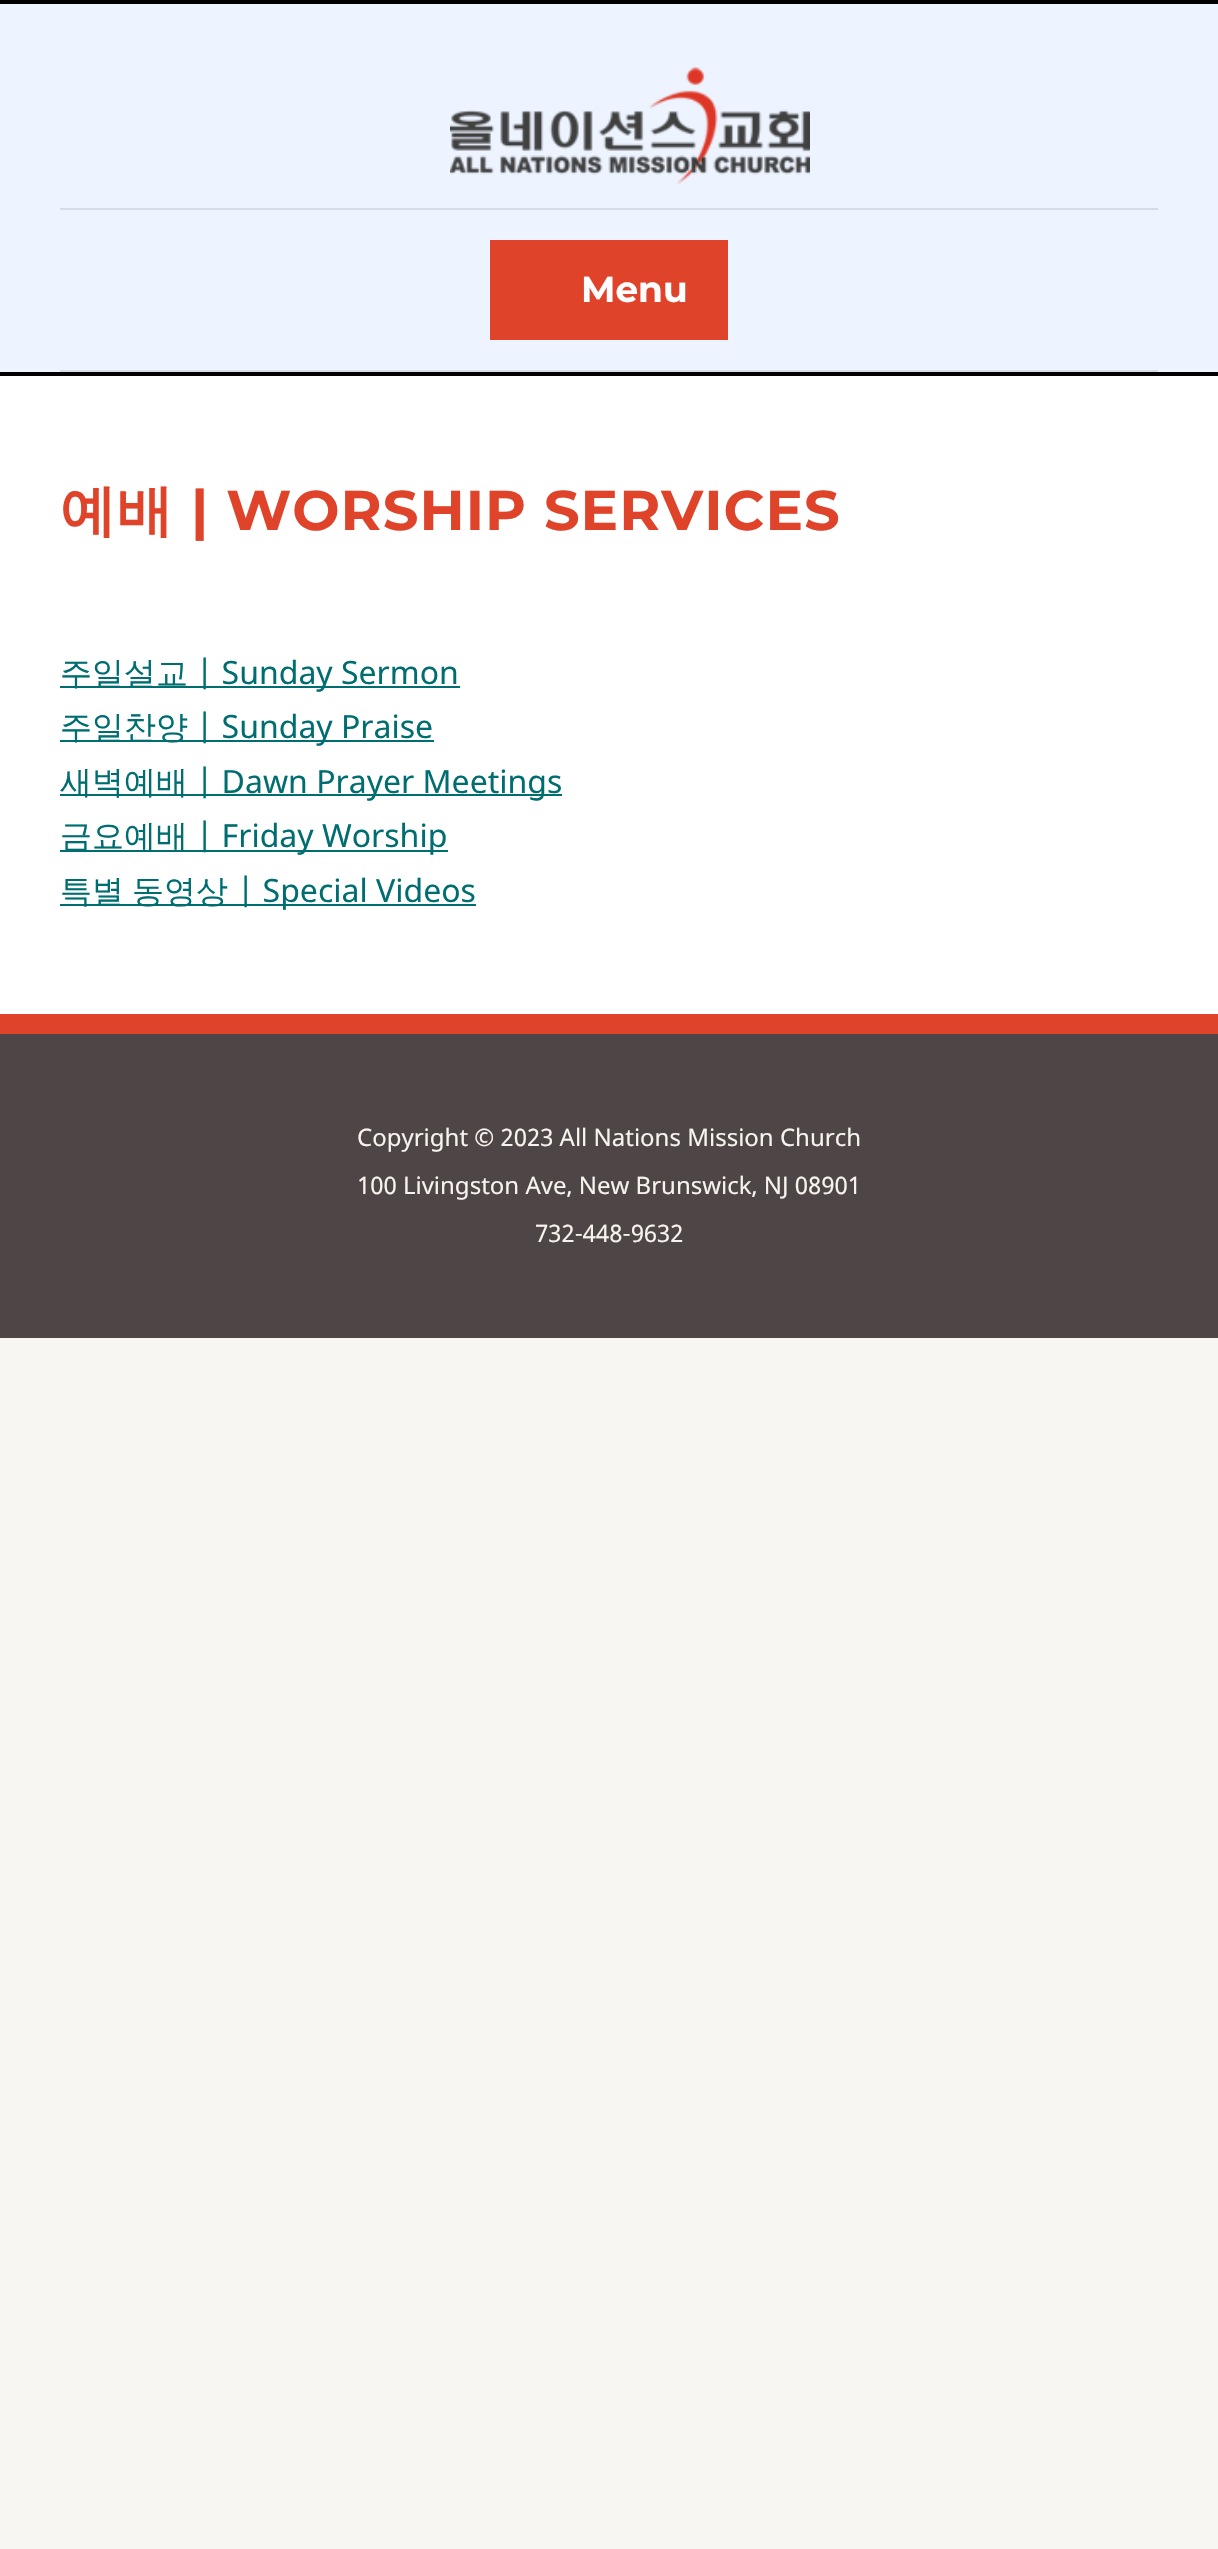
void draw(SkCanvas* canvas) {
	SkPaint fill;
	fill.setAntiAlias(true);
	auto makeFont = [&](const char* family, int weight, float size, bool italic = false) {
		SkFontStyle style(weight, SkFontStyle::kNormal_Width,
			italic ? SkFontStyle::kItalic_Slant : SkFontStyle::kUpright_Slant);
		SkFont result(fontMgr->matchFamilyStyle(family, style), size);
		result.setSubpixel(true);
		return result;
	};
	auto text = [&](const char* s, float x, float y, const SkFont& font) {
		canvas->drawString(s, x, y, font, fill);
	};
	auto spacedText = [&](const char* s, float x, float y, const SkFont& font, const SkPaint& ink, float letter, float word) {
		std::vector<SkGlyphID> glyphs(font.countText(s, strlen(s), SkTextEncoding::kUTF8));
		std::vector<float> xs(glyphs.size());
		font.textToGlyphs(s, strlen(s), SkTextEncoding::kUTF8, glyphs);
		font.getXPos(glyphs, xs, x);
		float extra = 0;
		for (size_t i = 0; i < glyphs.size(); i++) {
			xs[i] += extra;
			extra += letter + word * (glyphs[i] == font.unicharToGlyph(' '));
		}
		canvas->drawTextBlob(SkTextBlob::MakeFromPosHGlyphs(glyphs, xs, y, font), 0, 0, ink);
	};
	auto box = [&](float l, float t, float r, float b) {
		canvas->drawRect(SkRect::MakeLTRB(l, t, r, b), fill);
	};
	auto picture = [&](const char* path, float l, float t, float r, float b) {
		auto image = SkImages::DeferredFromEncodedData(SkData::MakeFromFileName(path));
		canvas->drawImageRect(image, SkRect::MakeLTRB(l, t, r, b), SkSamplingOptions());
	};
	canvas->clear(0xFFF8F6F2);
	fill.setColor(0xFFEDF4FF);
	box(0, 4, 1218, 372);
	fill.setColor(0xFF000000);
	box(0, 0, 1218, 4);
	box(0, 372, 1218, 376);
	picture("image0.png", 450, 67, 810, 185);
	fill.setColor(0xFFD5DCE6);
	box(60, 208, 1158, 210);
	box(60, 370, 1158, 372);
	fill.setColor(0xFFDF442A);
	box(490, 240, 728, 340);
	fill.setColor(0xFFFFFFFF);
	box(0, 376, 1218, 1014);
	fill.setColor(0xFF006E70);
	box(60, 686, 460, 688);
	box(60, 740, 434, 742);
	box(60, 794, 562, 796);
	box(60, 850, 448, 852);
	box(60, 904, 476, 906);
	fill.setColor(0xFFDF442A);
	box(0, 1014, 1218, 1034);
	fill.setColor(0xFF4E4646);
	box(0, 1034, 1218, 1338);
	auto font1 = makeFont("Montserrat", 100, 36);
	fill.setColor(0xFFFFFFFF);
	text("Menu", 581, 302, font1);
	auto font2 = makeFont("WenQuanYi Zen Hei", 700, 56);
	fill.setColor(0xFFDF442A);
	spacedText("예배", 60, 530, font2, fill, 1, 0);
	auto font3 = makeFont("Montserrat", 100, 56);
	spacedText("| WORSHIP SERVICES", 191, 530, font3, fill, 1, 0);
	auto font4 = makeFont("WenQuanYi Zen Hei", 500, 32);
	fill.setColor(0xFF006E70);
	text("주일설교", 60, 684, font4);
	auto font5 = makeFont("Noto Sans", 400, 32);
	text("| Sunday Sermon", 196, 684, font5);
	text("주일찬양", 60, 738, font4);
	text("| Sunday Praise", 196, 738, font5);
	text("새벽예배", 60, 793, font4);
	text("| Dawn Prayer Meetings", 196, 793, font5);
	text("금요예배", 60, 847, font4);
	text("| Friday Worship", 196, 847, font5);
	text("특별", 60, 902, font4);
	text("동영상", 132, 902, font4);
	text("| Special Videos", 237, 902, font5);
	auto font6 = makeFont("Noto Sans", 400, 24);
	fill.setColor(0xFFF7F3EE);
	text("Copyright © 2023 All Nations Mission Church", 357, 1146, font6);
	text("100 Livingston Ave, New Brunswick, NJ 08901", 357, 1194, font6);
	text("732-448-9632", 535, 1242, font6);
}
